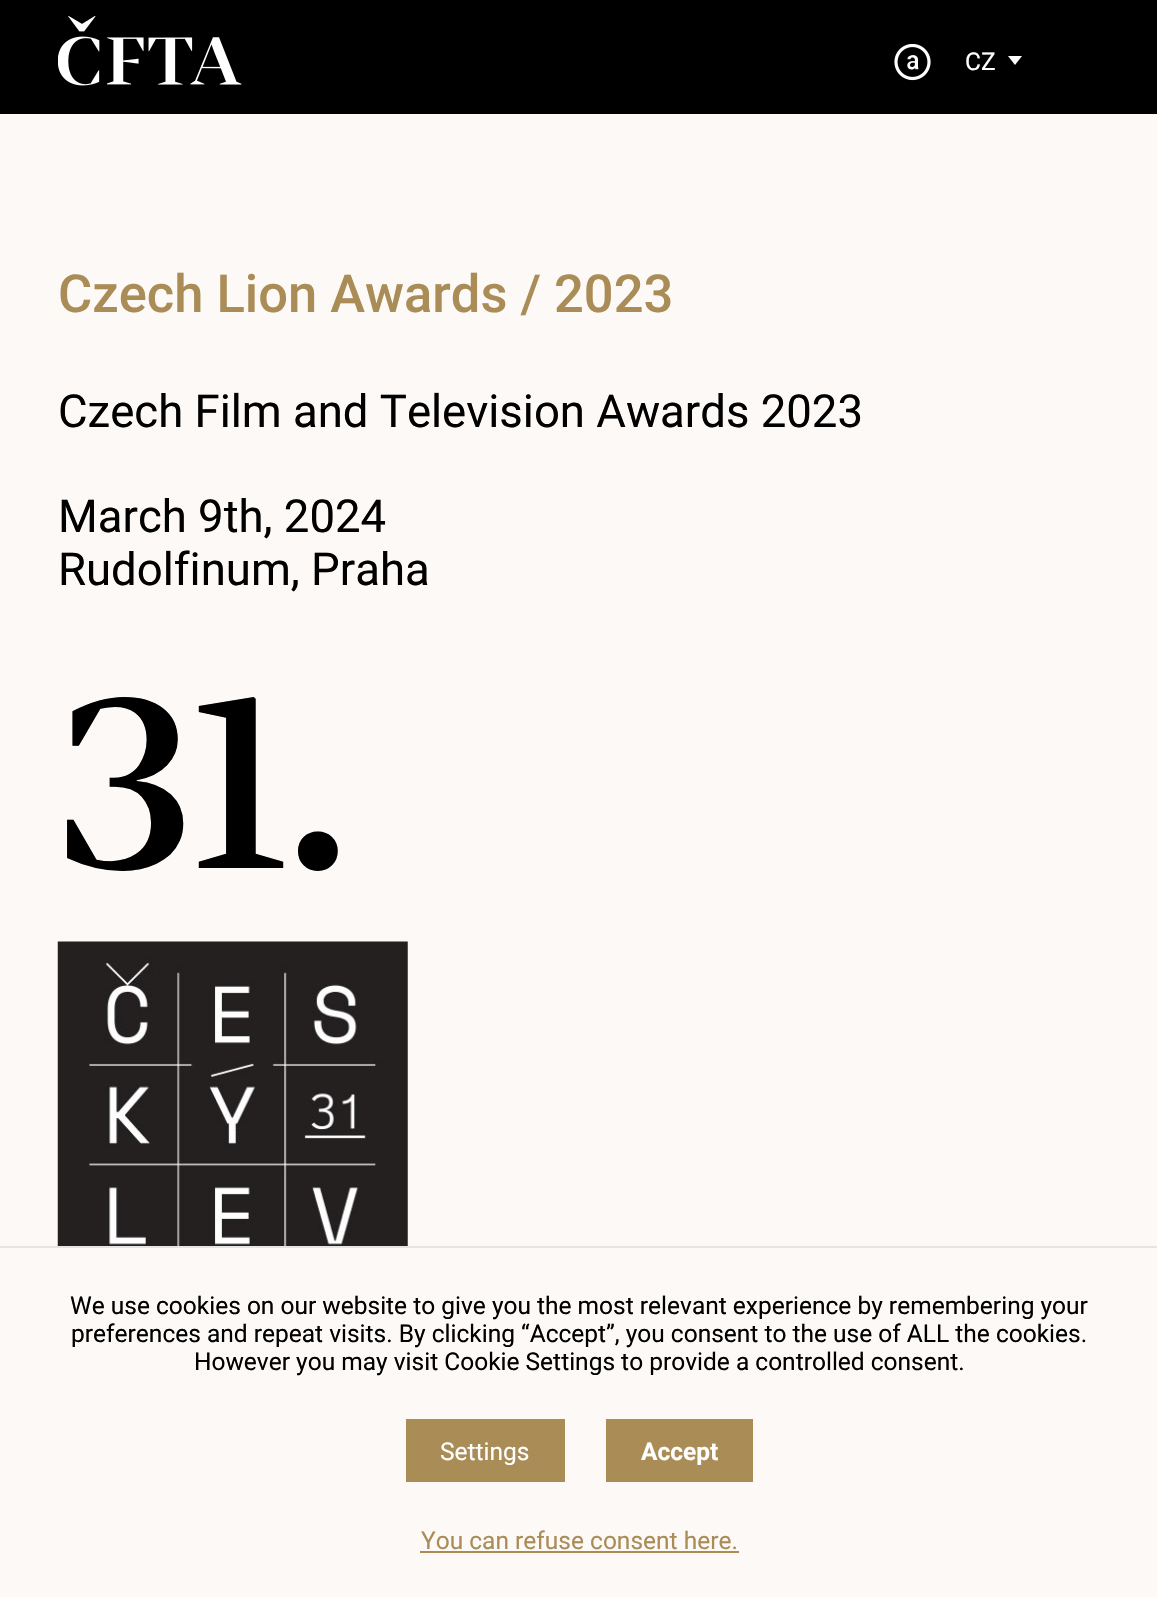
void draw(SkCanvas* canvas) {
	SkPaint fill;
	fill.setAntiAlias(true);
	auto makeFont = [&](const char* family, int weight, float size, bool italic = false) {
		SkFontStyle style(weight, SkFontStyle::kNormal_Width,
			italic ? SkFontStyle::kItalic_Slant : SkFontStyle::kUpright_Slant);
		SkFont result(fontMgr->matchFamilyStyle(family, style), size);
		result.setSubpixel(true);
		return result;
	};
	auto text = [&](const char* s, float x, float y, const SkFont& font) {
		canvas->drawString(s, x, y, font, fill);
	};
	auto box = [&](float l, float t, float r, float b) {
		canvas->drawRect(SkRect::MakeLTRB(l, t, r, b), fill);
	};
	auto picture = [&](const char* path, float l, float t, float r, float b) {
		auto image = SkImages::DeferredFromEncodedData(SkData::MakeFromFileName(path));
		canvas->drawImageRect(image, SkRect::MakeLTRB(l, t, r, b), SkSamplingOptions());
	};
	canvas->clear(0xFFFCF9F6);
	fill.setColor(0xFF000000);
	box(0, 0, 1157, 114);
	picture("image0.png", 58, 16, 242, 86);
	picture("image1.png", 894, 44, 931, 81);
	fill.setColor(0xFFFFFFFF);
	canvas->drawPath(SkPathBuilder().moveTo(1015, 65).lineTo(1008, 56).lineTo(1022, 56).close().detach(), fill);
	picture("image2.png", 57, 941, 408, 1246);
	fill.setColor(0xFFE5E5E5);
	box(0, 1246, 1157, 1248);
	fill.setColor(0xFFAA8C57);
	box(406, 1419, 565, 1482);
	box(606, 1419, 753, 1482);
	box(420, 1551, 739, 1553);
	auto font1 = makeFont("Roboto", 400, 24.5f);
	fill.setColor(0xFFFFFFFF);
	text("CZ", 965, 70, font1);
	auto font2 = makeFont("Roboto", 500, 52.5f);
	fill.setColor(0xFFAA8C57);
	text("Czech Lion Awards / 2023", 58, 312, font2);
	auto font3 = makeFont("Roboto", 400, 45.5f);
	fill.setColor(0xFF000000);
	text("Czech Film and Television Awards 2023", 58, 427, font3);
	text("March 9th, 2024", 58, 532, font3);
	text("Rudolfinum, Praha", 58, 585, font3);
	auto font4 = makeFont("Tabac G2", 500, 245);
	text("31.", 58, 868, font4);
	text("We use cookies on our website to give you the most relevant experience by remembering your", 70, 1314, font1);
	text("preferences and repeat visits. By clicking “Accept”, you consent to the use of ALL the cookies.", 71, 1342, font1);
	text("However you may visit Cookie Settings to provide a controlled consent.", 194, 1370, font1);
	fill.setColor(0xFFFFFFFF);
	text("Settings", 440, 1460, font1);
	auto font5 = makeFont("Roboto", 700, 24.5f);
	text("Accept", 641, 1460, font5);
	fill.setColor(0xFFAA8C57);
	text("You can refuse consent here.", 421, 1549, font1);
}
